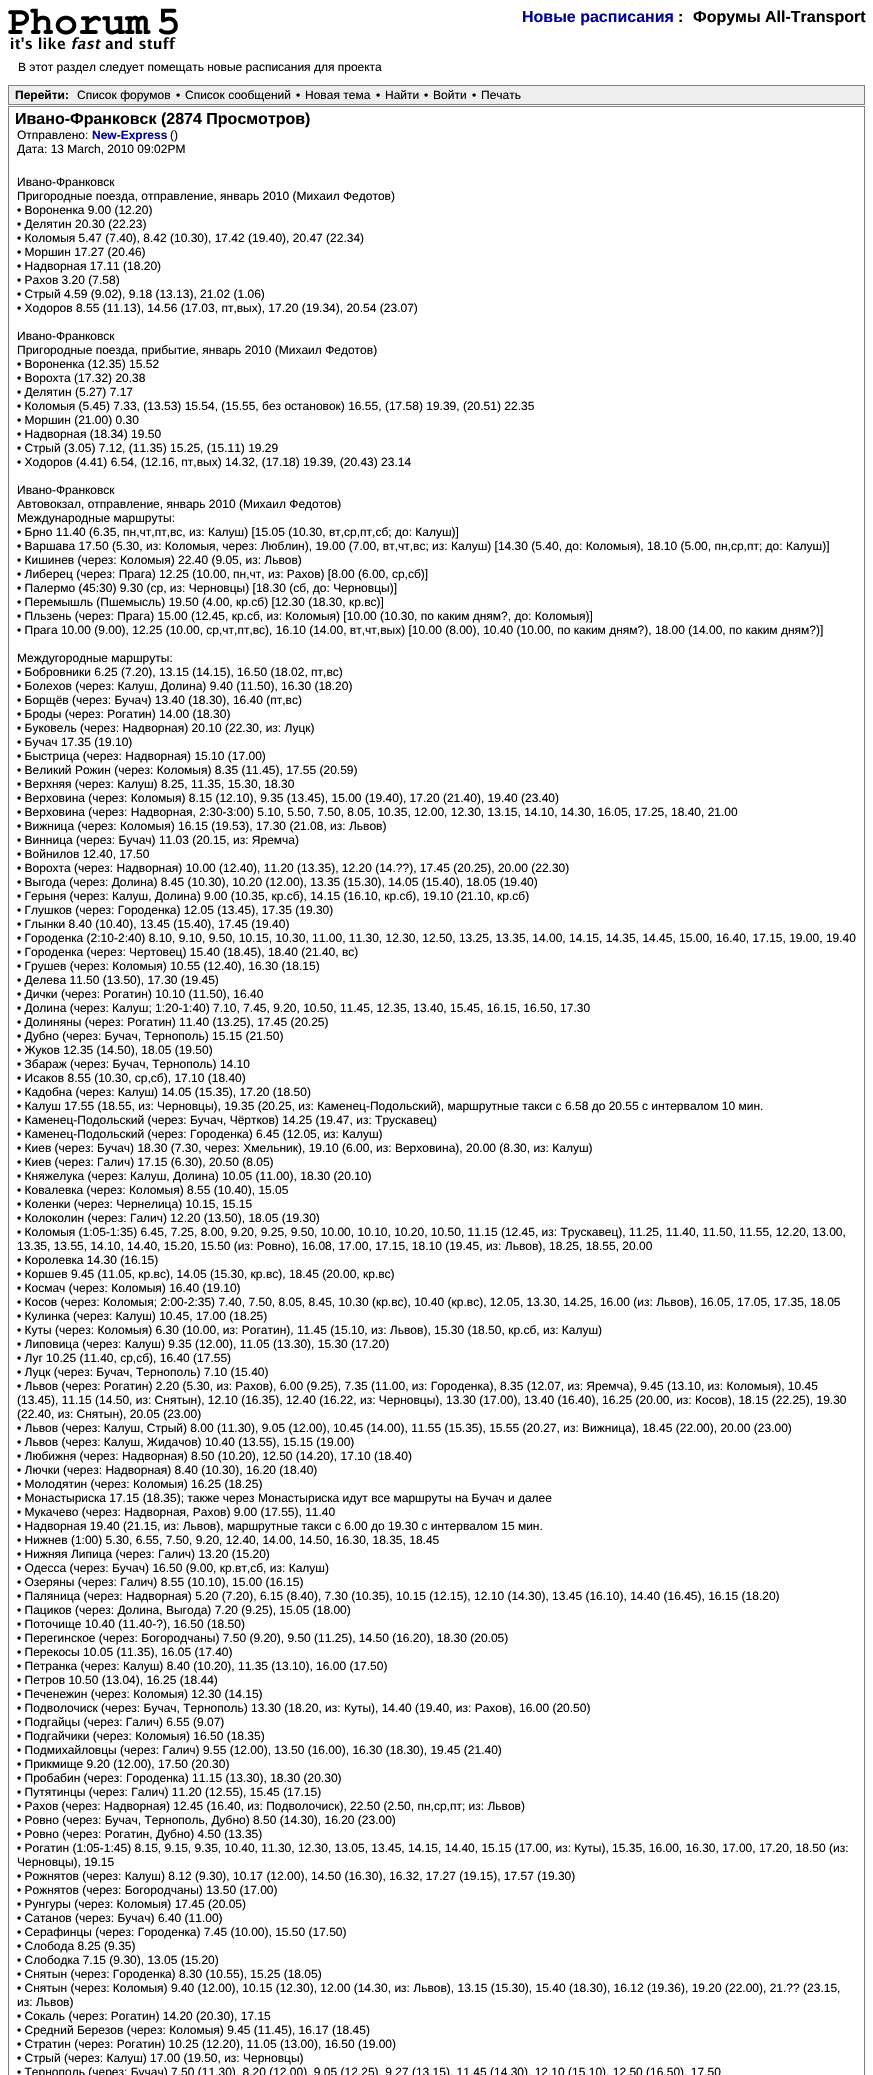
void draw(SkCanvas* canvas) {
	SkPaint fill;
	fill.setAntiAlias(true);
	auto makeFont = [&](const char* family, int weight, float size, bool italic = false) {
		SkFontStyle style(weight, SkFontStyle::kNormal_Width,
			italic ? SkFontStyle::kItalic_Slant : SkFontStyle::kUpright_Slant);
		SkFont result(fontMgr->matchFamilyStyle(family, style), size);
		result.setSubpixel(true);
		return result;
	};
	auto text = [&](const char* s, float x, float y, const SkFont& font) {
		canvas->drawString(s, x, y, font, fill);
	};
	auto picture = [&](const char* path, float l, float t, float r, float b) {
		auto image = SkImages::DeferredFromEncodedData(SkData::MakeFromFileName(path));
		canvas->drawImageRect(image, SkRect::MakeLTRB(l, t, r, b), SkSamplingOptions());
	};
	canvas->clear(0xFFFFFFFF);
	picture("image0.png", 8, 8, 178, 50);
	fill.setColor(0xFFEEEEEE);
	canvas->drawRect(SkRect::MakeLTRB(8.5f, 85.5f, 864.5f, 104.5f), fill);
	fill.setStyle(SkPaint::kStroke_Style);
	fill.setStrokeWidth(1);
	fill.setColor(0xFF808080);
	canvas->drawRect(SkRect::MakeLTRB(8.5f, 85.5f, 864.5f, 104.5f), fill);
	canvas->drawRect(SkRect::MakeLTRB(8.5f, 106.5f, 864.5f, 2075.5f), fill);
	auto font1 = makeFont("Liberation Sans", 700, 16);
	fill.setStyle(SkPaint::kFill_Style);
	fill.setColor(0xFF000099);
	text("Новые расписания", 522, 22, font1);
	fill.setColor(0xFF000000);
	text(":", 678, 22, font1);
	text("Форумы All-Transport", 693, 22, font1);
	auto font2 = makeFont("Liberation Sans", 400, 12);
	text("В этот раздел следует помещать новые расписания для проекта", 18, 71, font2);
	auto font3 = makeFont("Liberation Sans", 700, 12);
	text("Перейти:", 15, 99, font3);
	text("Список форумов", 77, 99, font2);
	text("•", 176, 99, font2);
	text("Список сообщений", 185, 99, font2);
	text("•", 296, 99, font2);
	text("Новая тема", 305, 99, font2);
	text("•", 376, 99, font2);
	text("Найти", 385, 99, font2);
	text("•", 424, 99, font2);
	text("Войти", 433, 99, font2);
	text("•", 472, 99, font2);
	text("Печать", 481, 99, font2);
	text("Ивано-Франковск (2874 Просмотров)", 15, 124, font1);
	text("Отправлено:", 17, 139, font2);
	fill.setColor(0xFF000099);
	text("New-Express", 92, 139, font3);
	fill.setColor(0xFF000000);
	text("()", 170, 139, font2);
	text("Дата: 13 March, 2010 09:02PM", 17, 153, font2);
	text("Ивано-Франковск", 17, 186, font2);
	text("Пригородные поезда, отправление, январь 2010 (Михаил Федотов)", 17, 200, font2);
	text("• Вороненка 9.00 (12.20)", 17, 214, font2);
	text("• Делятин 20.30 (22.23)", 17, 228, font2);
	text("• Коломыя 5.47 (7.40), 8.42 (10.30), 17.42 (19.40), 20.47 (22.34)", 17, 242, font2);
	text("• Моршин 17.27 (20.46)", 17, 256, font2);
	text("• Надворная 17.11 (18.20)", 17, 270, font2);
	text("• Рахов 3.20 (7.58)", 17, 284, font2);
	text("• Стрый 4.59 (9.02), 9.18 (13.13), 21.02 (1.06)", 17, 298, font2);
	text("• Ходоров 8.55 (11.13), 14.56 (17.03, пт,вых), 17.20 (19.34), 20.54 (23.07)", 17, 312, font2);
	text("Ивано-Франковск", 17, 340, font2);
	text("Пригородные поезда, прибытие, январь 2010 (Михаил Федотов)", 17, 354, font2);
	text("• Вороненка (12.35) 15.52", 17, 368, font2);
	text("• Ворохта (17.32) 20.38", 17, 382, font2);
	text("• Делятин (5.27) 7.17", 17, 396, font2);
	text("• Коломыя (5.45) 7.33, (13.53) 15.54, (15.55, без остановок) 16.55, (17.58) 19.39, (20.51) 22.35", 17, 410, font2);
	text("• Моршин (21.00) 0.30", 17, 424, font2);
	text("• Надворная (18.34) 19.50", 17, 438, font2);
	text("• Стрый (3.05) 7.12, (11.35) 15.25, (15.11) 19.29", 17, 452, font2);
	text("• Ходоров (4.41) 6.54, (12.16, пт,вых) 14.32, (17.18) 19.39, (20.43) 23.14", 17, 466, font2);
	text("Ивано-Франковск", 17, 494, font2);
	text("Автовокзал, отправление, январь 2010 (Михаил Федотов)", 17, 508, font2);
	text("Международные маршруты:", 17, 522, font2);
	text("• Брно 11.40 (6.35, пн,чт,пт,вс, из: Калуш) [15.05 (10.30, вт,ср,пт,сб; до: Калуш)]", 17, 536, font2);
	text("• Варшава 17.50 (5.30, из: Коломыя, через: Люблин), 19.00 (7.00, вт,чт,вс; из: Калуш) [14.30 (5.40, до: Коломыя), 18.10 (5.00, пн,ср,пт; до: Калуш)]", 17, 550, font2);
	text("• Кишинев (через: Коломыя) 22.40 (9.05, из: Львов)", 17, 564, font2);
	text("• Либерец (через: Прага) 12.25 (10.00, пн,чт, из: Рахов) [8.00 (6.00, ср,сб)]", 17, 578, font2);
	text("• Палермо (45:30) 9.30 (ср, из: Черновцы) [18.30 (сб, до: Черновцы)]", 17, 592, font2);
	text("• Перемышль (Пшемысль) 19.50 (4.00, кр.сб) [12.30 (18.30, кр.вс)]", 17, 606, font2);
	text("• Пльзень (через: Прага) 15.00 (12.45, кр.сб, из: Коломыя) [10.00 (10.30, по каким дням?, до: Коломыя)]", 17, 620, font2);
	text("• Прага 10.00 (9.00), 12.25 (10.00, ср,чт,пт,вс), 16.10 (14.00, вт,чт,вых) [10.00 (8.00), 10.40 (10.00, по каким дням?), 18.00 (14.00, по каким дням?)]", 17, 634, font2);
	text("Междугородные маршруты:", 17, 662, font2);
	text("• Бобровники 6.25 (7.20), 13.15 (14.15), 16.50 (18.02, пт,вс)", 17, 676, font2);
	text("• Болехов (через: Калуш, Долина) 9.40 (11.50), 16.30 (18.20)", 17, 690, font2);
	text("• Борщёв (через: Бучач) 13.40 (18.30), 16.40 (пт,вс)", 17, 704, font2);
	text("• Броды (через: Рогатин) 14.00 (18.30)", 17, 718, font2);
	text("• Буковель (через: Надворная) 20.10 (22.30, из: Луцк)", 17, 732, font2);
	text("• Бучач 17.35 (19.10)", 17, 746, font2);
	text("• Быстрица (через: Надворная) 15.10 (17.00)", 17, 760, font2);
	text("• Великий Рожин (через: Коломыя) 8.35 (11.45), 17.55 (20.59)", 17, 774, font2);
	text("• Верхняя (через: Калуш) 8.25, 11.35, 15.30, 18.30", 17, 788, font2);
	text("• Верховина (через: Коломыя) 8.15 (12.10), 9.35 (13.45), 15.00 (19.40), 17.20 (21.40), 19.40 (23.40)", 17, 802, font2);
	text("• Верховина (через: Надворная, 2:30-3:00) 5.10, 5.50, 7.50, 8.05, 10.35, 12.00, 12.30, 13.15, 14.10, 14.30, 16.05, 17.25, 18.40, 21.00", 17, 816, font2);
	text("• Вижница (через: Коломыя) 16.15 (19.53), 17.30 (21.08, из: Львов)", 17, 830, font2);
	text("• Винница (через: Бучач) 11.03 (20.15, из: Яремча)", 17, 844, font2);
	text("• Войнилов 12.40, 17.50", 17, 858, font2);
	text("• Ворохта (через: Надворная) 10.00 (12.40), 11.20 (13.35), 12.20 (14.?\077), 17.45 (20.25), 20.00 (22.30)", 17, 872, font2);
	text("• Выгода (через: Долина) 8.45 (10.30), 10.20 (12.00), 13.35 (15.30), 14.05 (15.40), 18.05 (19.40)", 17, 886, font2);
	text("• Герыня (через: Калуш, Долина) 9.00 (10.35, кр.сб), 14.15 (16.10, кр.сб), 19.10 (21.10, кр.сб)", 17, 900, font2);
	text("• Глушков (через: Городенка) 12.05 (13.45), 17.35 (19.30)", 17, 914, font2);
	text("• Глынки 8.40 (10.40), 13.45 (15.40), 17.45 (19.40)", 17, 928, font2);
	text("• Городенка (2:10-2:40) 8.10, 9.10, 9.50, 10.15, 10.30, 11.00, 11.30, 12.30, 12.50, 13.25, 13.35, 14.00, 14.15, 14.35, 14.45, 15.00, 16.40, 17.15, 19.00, 19.40", 17, 942, font2);
	text("• Городенка (через: Чертовец) 15.40 (18.45), 18.40 (21.40, вс)", 17, 956, font2);
	text("• Грушев (через: Коломыя) 10.55 (12.40), 16.30 (18.15)", 17, 970, font2);
	text("• Делева 11.50 (13.50), 17.30 (19.45)", 17, 984, font2);
	text("• Дички (через: Рогатин) 10.10 (11.50), 16.40", 17, 998, font2);
	text("• Долина (через: Калуш; 1:20-1:40) 7.10, 7.45, 9.20, 10.50, 11.45, 12.35, 13.40, 15.45, 16.15, 16.50, 17.30", 17, 1012, font2);
	text("• Долиняны (через: Рогатин) 11.40 (13.25), 17.45 (20.25)", 17, 1026, font2);
	text("• Дубно (через: Бучач, Тернополь) 15.15 (21.50)", 17, 1040, font2);
	text("• Жуков 12.35 (14.50), 18.05 (19.50)", 17, 1054, font2);
	text("• Збараж (через: Бучач, Тернополь) 14.10", 17, 1068, font2);
	text("• Исаков 8.55 (10.30, ср,сб), 17.10 (18.40)", 17, 1082, font2);
	text("• Кадобна (через: Калуш) 14.05 (15.35), 17.20 (18.50)", 17, 1096, font2);
	text("• Калуш 17.55 (18.55, из: Черновцы), 19.35 (20.25, из: Каменец-Подольский), маршрутные такси с 6.58 до 20.55 с интервалом 10 мин.", 17, 1110, font2);
	text("• Каменец-Подольский (через: Бучач, Чёртков) 14.25 (19.47, из: Трускавец)", 17, 1124, font2);
	text("• Каменец-Подольский (через: Городенка) 6.45 (12.05, из: Калуш)", 17, 1138, font2);
	text("• Киев (через: Бучач) 18.30 (7.30, через: Хмельник), 19.10 (6.00, из: Верховина), 20.00 (8.30, из: Калуш)", 17, 1152, font2);
	text("• Киев (через: Галич) 17.15 (6.30), 20.50 (8.05)", 17, 1166, font2);
	text("• Княжелука (через: Калуш, Долина) 10.05 (11.00), 18.30 (20.10)", 17, 1180, font2);
	text("• Ковалевка (через: Коломыя) 8.55 (10.40), 15.05", 17, 1194, font2);
	text("• Коленки (через: Чернелица) 10.15, 15.15", 17, 1208, font2);
	text("• Колоколин (через: Галич) 12.20 (13.50), 18.05 (19.30)", 17, 1222, font2);
	text("• Коломыя (1:05-1:35) 6.45, 7.25, 8.00, 9.20, 9.25, 9.50, 10.00, 10.10, 10.20, 10.50, 11.15 (12.45, из: Трускавец), 11.25, 11.40, 11.50, 11.55, 12.20, 13.00,", 17, 1236, font2);
	text("13.35, 13.55, 14.10, 14.40, 15.20, 15.50 (из: Ровно), 16.08, 17.00, 17.15, 18.10 (19.45, из: Львов), 18.25, 18.55, 20.00", 17, 1250, font2);
	text("• Королевка 14.30 (16.15)", 17, 1264, font2);
	text("• Коршев 9.45 (11.05, кр.вс), 14.05 (15.30, кр.вс), 18.45 (20.00, кр.вс)", 17, 1278, font2);
	text("• Космач (через: Коломыя) 16.40 (19.10)", 17, 1292, font2);
	text("• Косов (через: Коломыя; 2:00-2:35) 7.40, 7.50, 8.05, 8.45, 10.30 (кр.вс), 10.40 (кр.вс), 12.05, 13.30, 14.25, 16.00 (из: Львов), 16.05, 17.05, 17.35, 18.05", 17, 1306, font2);
	text("• Кулинка (через: Калуш) 10.45, 17.00 (18.25)", 17, 1320, font2);
	text("• Куты (через: Коломыя) 6.30 (10.00, из: Рогатин), 11.45 (15.10, из: Львов), 15.30 (18.50, кр.сб, из: Калуш)", 17, 1334, font2);
	text("• Липовица (через: Калуш) 9.35 (12.00), 11.05 (13.30), 15.30 (17.20)", 17, 1348, font2);
	text("• Луг 10.25 (11.40, ср,сб), 16.40 (17.55)", 17, 1362, font2);
	text("• Луцк (через: Бучач, Тернополь) 7.10 (15.40)", 17, 1376, font2);
	text("• Львов (через: Рогатин) 2.20 (5.30, из: Рахов), 6.00 (9.25), 7.35 (11.00, из: Городенка), 8.35 (12.07, из: Яремча), 9.45 (13.10, из: Коломыя), 10.45", 17, 1390, font2);
	text("(13.45), 11.15 (14.50, из: Снятын), 12.10 (16.35), 12.40 (16.22, из: Черновцы), 13.30 (17.00), 13.40 (16.40), 16.25 (20.00, из: Косов), 18.15 (22.25), 19.30", 17, 1404, font2);
	text("(22.40, из: Снятын), 20.05 (23.00)", 17, 1418, font2);
	text("• Львов (через: Калуш, Стрый) 8.00 (11.30), 9.05 (12.00), 10.45 (14.00), 11.55 (15.35), 15.55 (20.27, из: Вижница), 18.45 (22.00), 20.00 (23.00)", 17, 1432, font2);
	text("• Львов (через: Калуш, Жидачов) 10.40 (13.55), 15.15 (19.00)", 17, 1446, font2);
	text("• Любижня (через: Надворная) 8.50 (10.20), 12.50 (14.20), 17.10 (18.40)", 17, 1460, font2);
	text("• Лючки (через: Надворная) 8.40 (10.30), 16.20 (18.40)", 17, 1474, font2);
	text("• Молодятин (через: Коломыя) 16.25 (18.25)", 17, 1488, font2);
	text("• Монастыриска 17.15 (18.35); также через Монастыриска идут все маршруты на Бучач и далее", 17, 1502, font2);
	text("• Мукачево (через: Надворная, Рахов) 9.00 (17.55), 11.40", 17, 1516, font2);
	text("• Надворная 19.40 (21.15, из: Львов), маршрутные такси с 6.00 до 19.30 с интервалом 15 мин.", 17, 1530, font2);
	text("• Нижнев (1:00) 5.30, 6.55, 7.50, 9.20, 12.40, 14.00, 14.50, 16.30, 18.35, 18.45", 17, 1544, font2);
	text("• Нижняя Липица (через: Галич) 13.20 (15.20)", 17, 1558, font2);
	text("• Одесса (через: Бучач) 16.50 (9.00, кр.вт,сб, из: Калуш)", 17, 1572, font2);
	text("• Озеряны (через: Галич) 8.55 (10.10), 15.00 (16.15)", 17, 1586, font2);
	text("• Паляница (через: Надворная) 5.20 (7.20), 6.15 (8.40), 7.30 (10.35), 10.15 (12.15), 12.10 (14.30), 13.45 (16.10), 14.40 (16.45), 16.15 (18.20)", 17, 1600, font2);
	text("• Пациков (через: Долина, Выгода) 7.20 (9.25), 15.05 (18.00)", 17, 1614, font2);
	text("• Поточище 10.40 (11.40-?), 16.50 (18.50)", 17, 1628, font2);
	text("• Перегинское (через: Богородчаны) 7.50 (9.20), 9.50 (11.25), 14.50 (16.20), 18.30 (20.05)", 17, 1642, font2);
	text("• Перекосы 10.05 (11.35), 16.05 (17.40)", 17, 1656, font2);
	text("• Петранка (через: Калуш) 8.40 (10.20), 11.35 (13.10), 16.00 (17.50)", 17, 1670, font2);
	text("• Петров 10.50 (13.04), 16.25 (18.44)", 17, 1684, font2);
	text("• Печенежин (через: Коломыя) 12.30 (14.15)", 17, 1698, font2);
	text("• Подволочиск (через: Бучач, Тернополь) 13.30 (18.20, из: Куты), 14.40 (19.40, из: Рахов), 16.00 (20.50)", 17, 1712, font2);
	text("• Подгайцы (через: Галич) 6.55 (9.07)", 17, 1726, font2);
	text("• Подгайчики (через: Коломыя) 16.50 (18.35)", 17, 1740, font2);
	text("• Подмихайловцы (через: Галич) 9.55 (12.00), 13.50 (16.00), 16.30 (18.30), 19.45 (21.40)", 17, 1754, font2);
	text("• Прикмище 9.20 (12.00), 17.50 (20.30)", 17, 1768, font2);
	text("• Пробабин (через: Городенка) 11.15 (13.30), 18.30 (20.30)", 17, 1782, font2);
	text("• Путятинцы (через: Галич) 11.20 (12.55), 15.45 (17.15)", 17, 1796, font2);
	text("• Рахов (через: Надворная) 12.45 (16.40, из: Подволочиск), 22.50 (2.50, пн,ср,пт; из: Львов)", 17, 1810, font2);
	text("• Ровно (через: Бучач, Тернополь, Дубно) 8.50 (14.30), 16.20 (23.00)", 17, 1824, font2);
	text("• Ровно (через: Рогатин, Дубно) 4.50 (13.35)", 17, 1838, font2);
	text("• Рогатин (1:05-1:45) 8.15, 9.15, 9.35, 10.40, 11.30, 12.30, 13.05, 13.45, 14.15, 14.40, 15.15 (17.00, из: Куты), 15.35, 16.00, 16.30, 17.00, 17.20, 18.50 (из:", 17, 1852, font2);
	text("Черновцы), 19.15", 17, 1866, font2);
	text("• Рожнятов (через: Калуш) 8.12 (9.30), 10.17 (12.00), 14.50 (16.30), 16.32, 17.27 (19.15), 17.57 (19.30)", 17, 1880, font2);
	text("• Рожнятов (через: Богородчаны) 13.50 (17.00)", 17, 1894, font2);
	text("• Рунгуры (через: Коломыя) 17.45 (20.05)", 17, 1908, font2);
	text("• Сатанов (через: Бучач) 6.40 (11.00)", 17, 1922, font2);
	text("• Серафинцы (через: Городенка) 7.45 (10.00), 15.50 (17.50)", 17, 1936, font2);
	text("• Слобода 8.25 (9.35)", 17, 1950, font2);
	text("• Слободка 7.15 (9.30), 13.05 (15.20)", 17, 1964, font2);
	text("• Снятын (через: Городенка) 8.30 (10.55), 15.25 (18.05)", 17, 1978, font2);
	text("• Снятын (через: Коломыя) 9.40 (12.00), 10.15 (12.30), 12.00 (14.30, из: Львов), 13.15 (15.30), 15.40 (18.30), 16.12 (19.36), 19.20 (22.00), 21.?\077 (23.15,", 17, 1992, font2);
	text("из: Львов)", 17, 2006, font2);
	text("• Сокаль (через: Рогатин) 14.20 (20.30), 17.15", 17, 2020, font2);
	text("• Средний Березов (через: Коломыя) 9.45 (11.45), 16.17 (18.45)", 17, 2034, font2);
	text("• Стратин (через: Рогатин) 10.25 (12.20), 11.05 (13.00), 16.50 (19.00)", 17, 2048, font2);
	text("• Стрый (через: Калуш) 17.00 (19.50, из: Черновцы)", 17, 2062, font2);
	text("• Тернополь (через: Бучач) 7.50 (11.30), 8.20 (12.00), 9.05 (12.25), 9.27 (13.15), 11.45 (14.30), 12.10 (15.10), 12.50 (16.50), 17.50", 17, 2076, font2);
}
